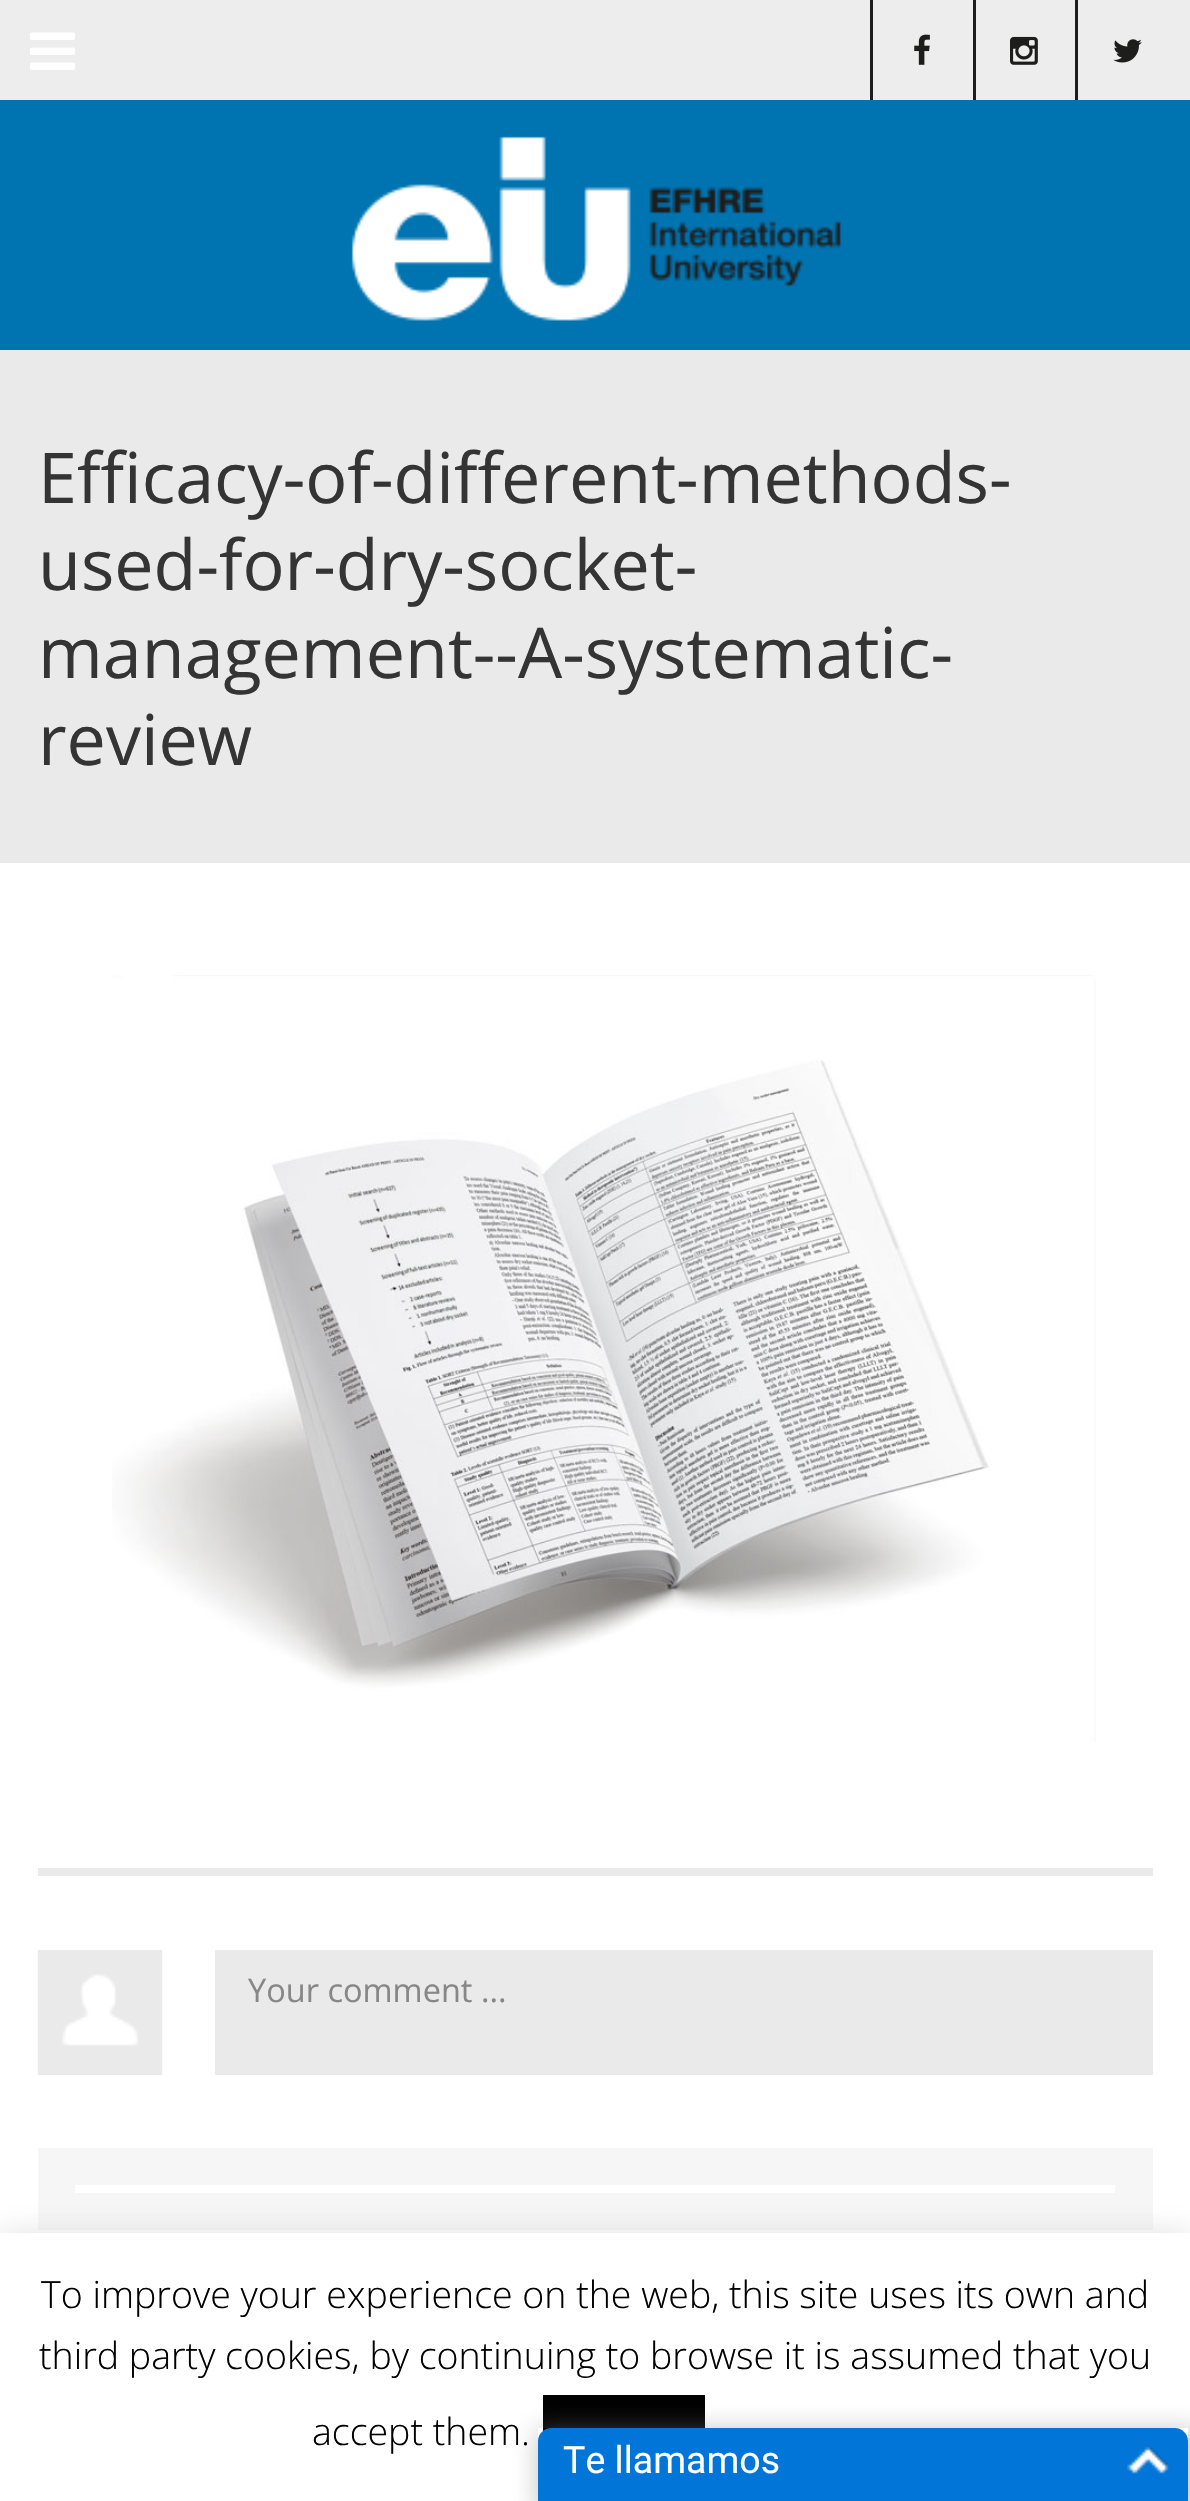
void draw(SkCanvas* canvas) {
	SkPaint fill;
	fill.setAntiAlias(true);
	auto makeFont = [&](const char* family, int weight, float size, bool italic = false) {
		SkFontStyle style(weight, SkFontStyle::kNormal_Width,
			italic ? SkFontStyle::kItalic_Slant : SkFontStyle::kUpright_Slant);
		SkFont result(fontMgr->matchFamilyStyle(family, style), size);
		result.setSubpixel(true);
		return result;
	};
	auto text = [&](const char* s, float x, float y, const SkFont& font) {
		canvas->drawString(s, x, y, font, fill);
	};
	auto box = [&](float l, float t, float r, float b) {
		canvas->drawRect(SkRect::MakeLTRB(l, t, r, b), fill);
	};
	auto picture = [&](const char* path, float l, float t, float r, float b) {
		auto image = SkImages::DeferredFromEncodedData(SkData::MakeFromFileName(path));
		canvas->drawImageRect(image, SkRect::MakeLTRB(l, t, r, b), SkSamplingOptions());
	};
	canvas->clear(0xFFFFFFFF);
	fill.setColor(0xFFEDEDED);
	box(0, 0, 1190, 100);
	picture("image0.png", 30, 32, 75, 70);
	fill.setColor(0xFF1D1D1B);
	box(870, 0, 873, 100);
	picture("image1.png", 914, 34, 930, 65);
	box(973, 0, 976, 100);
	picture("image2.png", 1010, 36, 1038, 65);
	box(1075, 0, 1078, 100);
	picture("image3.png", 1113, 39, 1142, 63);
	fill.setColor(0xFF0073B1);
	box(0, 100, 1190, 350);
	picture("image4.png", 351, 136, 841, 321);
	fill.setColor(0xFFEAEAEA);
	box(0, 350, 1190, 863);
	picture("image5.png", 112, 975, 1096, 1742);
	box(38, 1868, 1153, 1876);
	picture("image6.png", 37, 1950, 163, 2075);
	box(215, 1950, 1153, 2075);
	fill.setColor(0xFFF6F6F6);
	box(38, 2148, 1153, 2230);
	fill.setColor(0xFFFFFFFF);
	box(75, 2185, 1115, 2193);
	fill.setColor(0x4DACABAB);
	fill.setMaskFilter(SkMaskFilter::MakeBlur(kNormal_SkBlurStyle, 12.5f));
	canvas->drawRect(SkRect::MakeLTRB(0, 2230, 1190, 2500), fill);
	fill.setMaskFilter(nullptr);
	fill.setColor(0xFFFFFFFF);
	box(0, 2233, 1190, 2501);
	fill.setColor(0xFF000000);
	box(543, 2395, 705, 2431);
	canvas->save();
	canvas->clipPath(SkPathBuilder(SkPathFillType::kEvenOdd).moveTo(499, 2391).lineTo(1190, 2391).lineTo(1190, 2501).lineTo(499, 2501).close().moveTo(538, 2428).lineTo(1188, 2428).lineTo(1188, 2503).lineTo(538, 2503).close().detach(), true);
	fill.setColor(0x808B8585);
	fill.setMaskFilter(SkMaskFilter::MakeBlur(kNormal_SkBlurStyle, 12.5f));
	canvas->drawRect(SkRect::MakeLTRB(538, 2430, 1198, 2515), fill);
	fill.setMaskFilter(nullptr);
	canvas->restore();
	fill.setColor(0xFF0275D8);
	canvas->drawPath(SkPathBuilder().moveTo(551, 2428).lineTo(1175, 2428).cubicTo(1182, 2428, 1188, 2434, 1188, 2441).lineTo(1188, 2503).lineTo(538, 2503).lineTo(538, 2441).cubicTo(538, 2434, 544, 2428, 551, 2428).close().detach(), fill);
	picture("image7.png", 1127, 2445, 1169, 2474);
	auto font1 = makeFont("Open Sans", 400, 70);
	fill.setColor(0xFF343434);
	text("Efficacy-of-different-methods-", 38, 503, font1);
	text("used-for-dry-socket-", 38, 590, font1);
	text("management--A-systematic-", 38, 678, font1);
	text("review", 38, 765, font1);
	auto font2 = makeFont("Open Sans", 400, 32.5f);
	fill.setColor(0xFF878787);
	text("Your comment ...", 248, 2002, font2);
	auto font3 = makeFont("Open Sans", 300, 37.5f);
	fill.setColor(0xFF000000);
	text("To improve your experience on the web, this site uses its own and", 41, 2308, font3);
	text("third party cookies, by continuing to browse it is assumed that you", 39, 2369, font3);
	text("accept them.", 312, 2445, font3);
	auto font4 = makeFont("Roboto", 400, 37.5f);
	fill.setColor(0xFFFFFFFF);
	text("Te llamamos", 563, 2473, font4);
}
